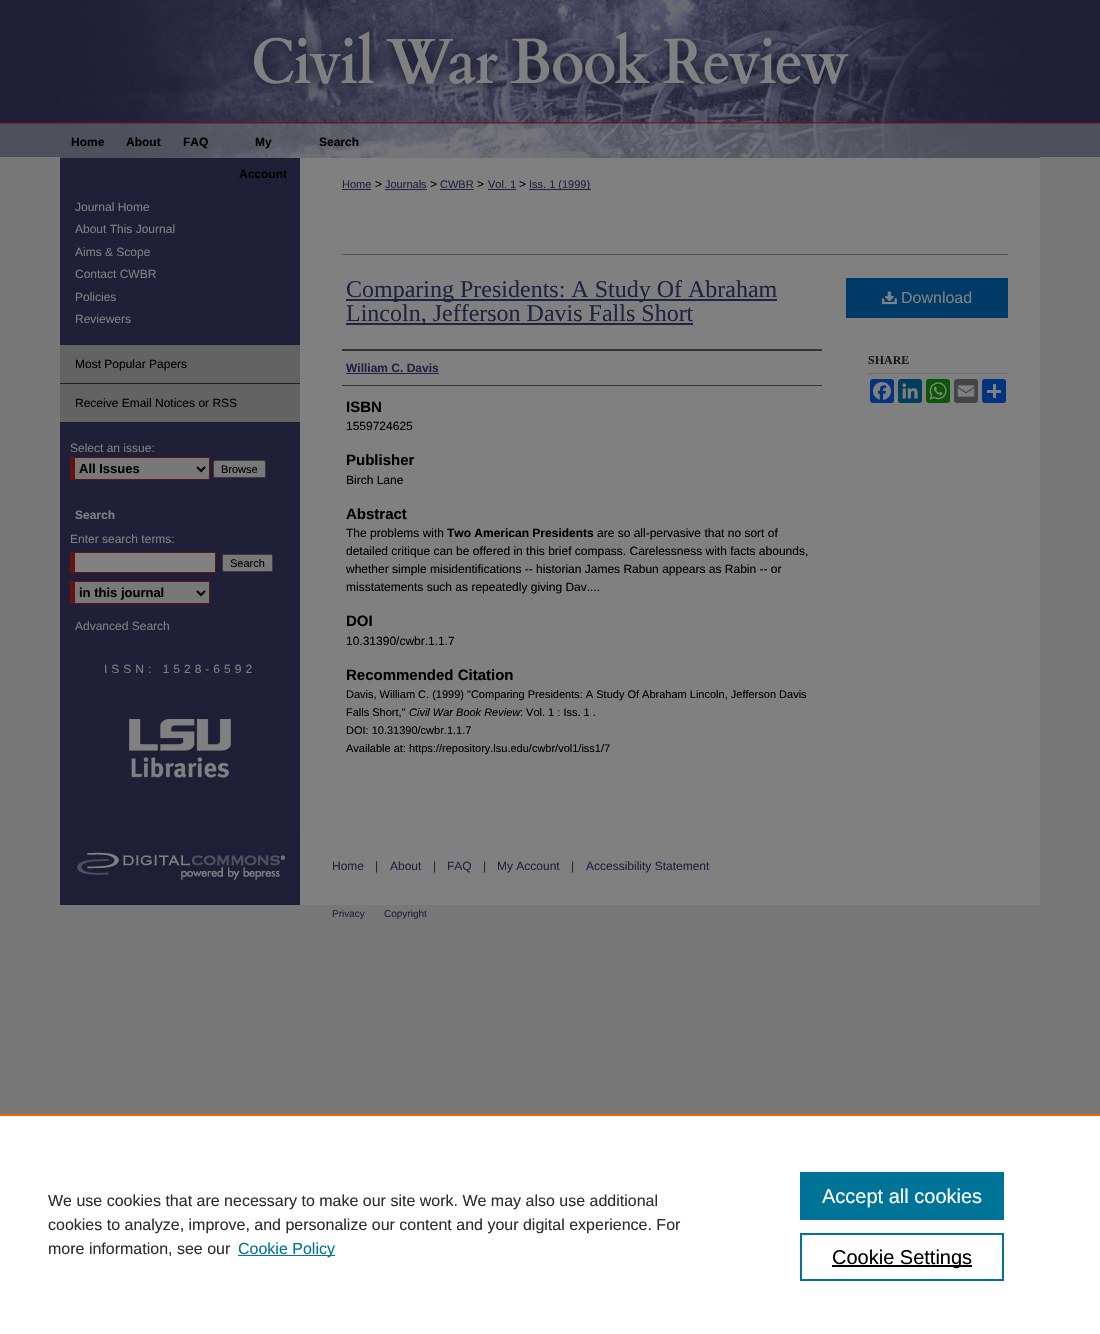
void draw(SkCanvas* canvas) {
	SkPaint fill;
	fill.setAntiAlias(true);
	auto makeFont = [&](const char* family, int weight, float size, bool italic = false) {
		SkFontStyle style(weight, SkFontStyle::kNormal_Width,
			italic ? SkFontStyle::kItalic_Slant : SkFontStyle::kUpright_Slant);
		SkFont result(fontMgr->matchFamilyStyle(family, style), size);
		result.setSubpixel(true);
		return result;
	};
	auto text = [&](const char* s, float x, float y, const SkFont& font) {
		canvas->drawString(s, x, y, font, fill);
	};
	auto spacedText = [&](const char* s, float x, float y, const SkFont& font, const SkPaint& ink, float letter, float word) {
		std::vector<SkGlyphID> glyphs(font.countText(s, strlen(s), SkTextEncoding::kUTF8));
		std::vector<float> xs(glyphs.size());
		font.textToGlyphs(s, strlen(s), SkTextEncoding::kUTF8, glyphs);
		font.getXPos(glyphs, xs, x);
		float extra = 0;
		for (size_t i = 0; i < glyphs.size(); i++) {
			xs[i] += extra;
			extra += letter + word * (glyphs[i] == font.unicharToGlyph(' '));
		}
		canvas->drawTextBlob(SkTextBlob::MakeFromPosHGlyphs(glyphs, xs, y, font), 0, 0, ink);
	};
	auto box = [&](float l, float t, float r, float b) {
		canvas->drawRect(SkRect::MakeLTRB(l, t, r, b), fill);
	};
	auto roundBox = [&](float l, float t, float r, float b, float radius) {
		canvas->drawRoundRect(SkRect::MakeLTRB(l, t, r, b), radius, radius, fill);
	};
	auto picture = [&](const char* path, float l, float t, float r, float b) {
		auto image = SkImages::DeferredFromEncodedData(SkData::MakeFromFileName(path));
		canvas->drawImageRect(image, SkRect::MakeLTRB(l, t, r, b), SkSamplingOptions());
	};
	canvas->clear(0xFF787878);
	picture("image0.png", 0, 0, 1100, 157);
	picture("image1.png", 60, 0, 1040, 126);
	fill.setColor(0xFF4F505C);
	box(60, 157, 1040, 158);
	picture("image2.png", 136, 126, 971, 158);
	fill.setColor(0xFF1F1F37);
	box(60, 158, 300, 830);
	fill.setColor(0xFF808080);
	box(300, 158, 1040, 905);
	fill.setColor(0xFF1C1C32);
	box(60, 344, 300, 345);
	fill.setColor(0xFF636363);
	box(60, 345, 300, 383);
	fill.setColor(0xFF1C1C32);
	box(60, 383, 300, 384);
	fill.setColor(0xFF636363);
	box(60, 384, 300, 422);
	fill.setColor(0xFF1C1C32);
	box(60, 422, 300, 423);
	fill.setColor(0xFF787878);
	box(75, 458, 209, 479);
	fill.setColor(0xFF651212);
	box(70, 457, 210, 458);
	box(209, 457, 210, 480);
	box(70, 479, 210, 480);
	box(70, 457, 75, 480);
	fill.setStyle(SkPaint::kStroke_Style);
	fill.setStrokeWidth(2);
	fill.setColor(0xFF000000);
	canvas->drawPath(SkPathBuilder().moveTo(197, 467).lineTo(201, 471).lineTo(205, 467).detach(), fill);
	fill.setStyle(SkPaint::kFill_Style);
	fill.setColor(0xFF787878);
	canvas->drawRoundRect(SkRect::MakeLTRB(213.5f, 460.5f, 265.5f, 477.5f), 1.5f, 1.5f, fill);
	fill.setStyle(SkPaint::kStroke_Style);
	fill.setStrokeWidth(1);
	fill.setColor(0xFF3B3B3B);
	canvas->drawRoundRect(SkRect::MakeLTRB(213.5f, 460.5f, 265.5f, 477.5f), 1.5f, 1.5f, fill);
	fill.setStyle(SkPaint::kFill_Style);
	fill.setColor(0xFF808080);
	box(75, 553, 215, 572);
	fill.setColor(0xFF651212);
	box(70, 552, 216, 553);
	box(215, 552, 216, 573);
	box(70, 572, 216, 573);
	box(70, 552, 75, 573);
	fill.setColor(0xFF787878);
	canvas->drawRoundRect(SkRect::MakeLTRB(222.5f, 554.5f, 272.5f, 571.5f), 1.5f, 1.5f, fill);
	fill.setStyle(SkPaint::kStroke_Style);
	fill.setColor(0xFF3B3B3B);
	canvas->drawRoundRect(SkRect::MakeLTRB(222.5f, 554.5f, 272.5f, 571.5f), 1.5f, 1.5f, fill);
	fill.setStyle(SkPaint::kFill_Style);
	fill.setColor(0xFF787878);
	box(75, 582, 209, 603);
	fill.setColor(0xFF651212);
	box(70, 581, 210, 582);
	box(209, 581, 210, 604);
	box(70, 603, 210, 604);
	box(70, 581, 75, 604);
	fill.setStyle(SkPaint::kStroke_Style);
	fill.setStrokeWidth(2);
	fill.setColor(0xFF000000);
	canvas->drawPath(SkPathBuilder().moveTo(197, 591).lineTo(201, 595).lineTo(205, 591).detach(), fill);
	picture("image3.png", 129, 719, 231, 778);
	fill.setStyle(SkPaint::kFill_Style);
	fill.setColor(0xFF222340);
	box(342, 189, 371, 190);
	box(385, 189, 427, 190);
	box(440, 189, 474, 190);
	box(488, 189, 516, 190);
	box(529, 189, 591, 190);
	fill.setColor(0xFF555555);
	box(342, 254, 1008, 255);
	fill.setColor(0xFF222340);
	box(346, 299, 777, 301);
	box(346, 323, 693, 325);
	fill.setColor(0xFF333333);
	box(342, 349, 822, 351);
	box(342, 385, 822, 386);
	fill.setColor(0xFF222340);
	box(346, 373, 439, 374);
	fill.setColor(0xFF003A66);
	box(846, 278, 1008, 318);
	picture("image4.png", 882, 291, 897, 305);
	fill.setColor(0xFF6F6F6F);
	box(868, 373, 1008, 374);
	fill.setColor(0xFF043380);
	roundBox(870, 379, 894, 403, 3);
	picture("image5.png", 873, 382, 891, 400);
	fill.setColor(0xFF003E5B);
	roundBox(898, 379, 922, 403, 3);
	picture("image6.png", 902, 383, 918, 399);
	fill.setColor(0xFF095805);
	roundBox(926, 379, 950, 403, 3);
	picture("image7.png", 929, 382, 947, 400);
	fill.setColor(0xFF444548);
	roundBox(954, 379, 978, 403, 3);
	picture("image8.png", 957, 385, 975, 397);
	fill.setColor(0xFF013380);
	roundBox(982, 379, 1006, 403, 3);
	fill.setColor(0xFF808080);
	box(993, 384, 996, 398);
	box(987, 390, 1001, 393);
	picture("image9.png", 60, 830, 300, 905);
	fill.setColor(0xFFFFFFFF);
	box(0, 1116, 1100, 1334);
	fill.setColor(0xFFEB6500);
	box(0, 1114, 1100, 1116);
	fill.setColor(0xFF007398);
	box(238, 1255, 335, 1256);
	box(800, 1172, 1004, 1220);
	fill.setStyle(SkPaint::kStroke_Style);
	canvas->drawRect(SkRect::MakeLTRB(801, 1234, 1003, 1280), fill);
	fill.setStyle(SkPaint::kFill_Style);
	fill.setColor(0xFF000000);
	box(832, 1265, 972, 1267);
	auto font1 = makeFont("Liberation Sans", 700, 12);
	text("Home", 71, 146, font1);
	text("About", 126, 146, font1);
	text("FAQ", 183, 146, font1);
	text("My", 255, 146, font1);
	text("Account", 239, 178, font1);
	text("Search", 319, 146, font1);
	auto font2 = makeFont("Liberation Sans", 400, 12);
	fill.setColor(0xFF808080);
	text("Journal Home", 75, 211, font2);
	text("About This Journal", 75, 233, font2);
	text("Aims & Scope", 75, 256, font2);
	text("Contact CWBR", 75, 278, font2);
	text("Policies", 75, 301, font2);
	text("Reviewers", 75, 323, font2);
	fill.setColor(0xFF000000);
	text("Most Popular Papers", 75, 368, font2);
	text("Receive Email Notices or RSS", 75, 407, font2);
	fill.setColor(0xFF808080);
	text("Select an issue:", 70, 452, font2);
	auto font3 = makeFont("Liberation Sans", 700, 13);
	fill.setColor(0xFF000000);
	text("All Issues", 79, 473, font3);
	auto font4 = makeFont("Liberation Sans", 400, 11);
	text("Browse", 221, 473, font4);
	fill.setColor(0xFF808080);
	text("Search", 75, 519, font1);
	text("Enter search terms:", 70, 543, font2);
	fill.setColor(0xFF000000);
	text("Search", 230, 567, font4);
	text("in this journal", 79, 597, font3);
	fill.setColor(0xFF808080);
	text("Advanced Search", 75, 630, font2);
	spacedText("ISSN: 1528-6592", 104, 673, font2, fill, 4, 0);
	fill.setColor(0xFF222340);
	text("Home", 342, 188, font4);
	fill.setColor(0xFF000000);
	text(">", 375, 188, font2);
	fill.setColor(0xFF222340);
	text("Journals", 385, 188, font4);
	fill.setColor(0xFF000000);
	text(">", 430, 188, font2);
	fill.setColor(0xFF222340);
	text("CWBR", 440, 188, font4);
	fill.setColor(0xFF000000);
	text(">", 477, 188, font2);
	fill.setColor(0xFF222340);
	text("Vol. 1", 488, 188, font4);
	fill.setColor(0xFF000000);
	text(">", 519, 188, font2);
	fill.setColor(0xFF222340);
	text("Iss. 1 (1999)", 529, 188, font4);
	auto font5 = makeFont("Liberation Serif", 400, 24);
	text("Comparing Presidents: A Study Of Abraham", 346, 297, font5);
	text("Lincoln, Jefferson Davis Falls Short", 346, 321, font5);
	text("William C. Davis", 346, 372, font1);
	auto font6 = makeFont("Liberation Sans", 700, 15);
	fill.setColor(0xFF000000);
	text("ISBN", 346, 412, font6);
	text("1559724625", 346, 430, font2);
	text("Publisher", 346, 465, font6);
	text("Birch Lane", 346, 484, font2);
	text("Abstract", 346, 519, font6);
	text("The problems with", 346, 537, font2);
	text("Two American Presidents", 447, 537, font1);
	text("are so all-pervasive that no sort of", 597, 537, font2);
	text("detailed critique can be offered in this brief compass. Carelessness with facts abounds,", 346, 555, font2);
	text("whether simple misidentifications -- historian James Rabun appears as Rabin -- or", 346, 573, font2);
	text("misstatements such as repeatedly giving Dav....", 346, 591, font2);
	text("DOI", 346, 626, font6);
	text("10.31390/cwbr.1.1.7", 346, 645, font2);
	text("Recommended Citation", 346, 680, font6);
	text("Davis, William C. (1999) \"Comparing Presidents: A Study Of Abraham Lincoln, Jefferson Davis", 346, 698, font4);
	text("Falls Short,\"", 346, 716, font4);
	auto font7 = makeFont("Liberation Sans", 400, 11, true);
	text("Civil War Book Review", 409, 716, font7);
	text(": Vol. 1 : Iss. 1 .", 520, 716, font4);
	text("DOI: 10.31390/cwbr.1.1.7", 346, 734, font4);
	text("Available at: https://repository.lsu.edu/cwbr/vol1/iss1/7", 346, 752, font4);
	auto font8 = makeFont("Liberation Sans", 400, 16);
	fill.setColor(0xFF808080);
	text("Download", 901, 303, font8);
	auto font9 = makeFont("Liberation Serif", 700, 12);
	fill.setColor(0xFF1A1A1A);
	text("SHARE", 868, 364, font9);
	fill.setColor(0xFF222340);
	text("Home", 332, 870, font2);
	text("|", 375, 870, font2);
	text("About", 390, 870, font2);
	text("|", 433, 870, font2);
	text("FAQ", 447, 870, font2);
	text("|", 483, 870, font2);
	text("My Account", 497, 870, font2);
	text("|", 571, 870, font2);
	text("Accessibility Statement", 586, 870, font2);
	auto font10 = makeFont("Liberation Sans", 400, 10);
	text("Privacy", 332, 917, font10);
	text("Copyright", 384, 917, font10);
	fill.setColor(0xFF2E2E2E);
	text("We use cookies that are necessary to make our site work. We may also use additional", 48, 1206, font8);
	text("cookies to analyze, improve, and personalize our content and your digital experience. For", 48, 1230, font8);
	text("more information, see our", 48, 1254, font8);
	fill.setColor(0xFF007398);
	text("Cookie Policy", 238, 1254, font8);
	auto font11 = makeFont("Liberation Sans", 400, 20);
	fill.setColor(0xFFFFFFFF);
	text("Accept all cookies", 822, 1203, font11);
	fill.setColor(0xFF000000);
	text("Cookie Settings", 832, 1264, font11);
}
